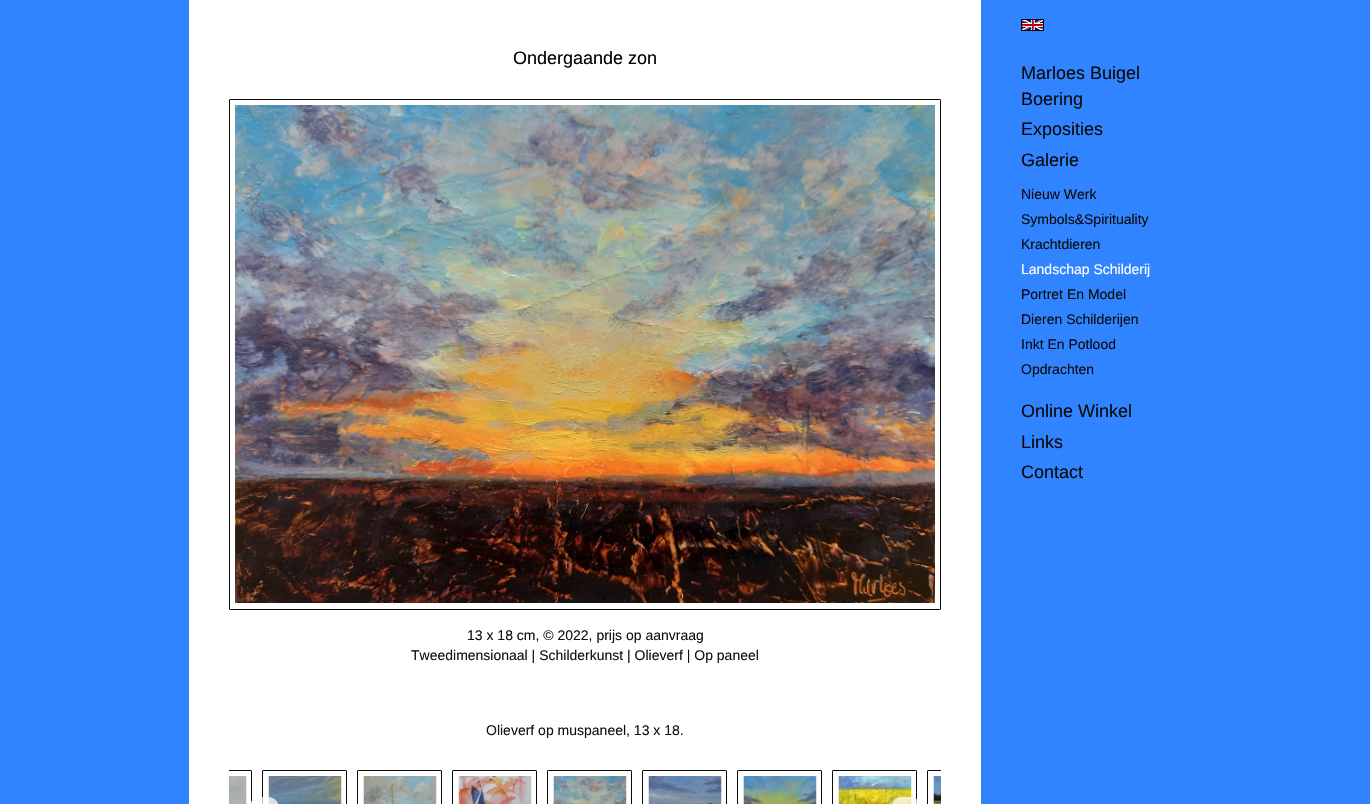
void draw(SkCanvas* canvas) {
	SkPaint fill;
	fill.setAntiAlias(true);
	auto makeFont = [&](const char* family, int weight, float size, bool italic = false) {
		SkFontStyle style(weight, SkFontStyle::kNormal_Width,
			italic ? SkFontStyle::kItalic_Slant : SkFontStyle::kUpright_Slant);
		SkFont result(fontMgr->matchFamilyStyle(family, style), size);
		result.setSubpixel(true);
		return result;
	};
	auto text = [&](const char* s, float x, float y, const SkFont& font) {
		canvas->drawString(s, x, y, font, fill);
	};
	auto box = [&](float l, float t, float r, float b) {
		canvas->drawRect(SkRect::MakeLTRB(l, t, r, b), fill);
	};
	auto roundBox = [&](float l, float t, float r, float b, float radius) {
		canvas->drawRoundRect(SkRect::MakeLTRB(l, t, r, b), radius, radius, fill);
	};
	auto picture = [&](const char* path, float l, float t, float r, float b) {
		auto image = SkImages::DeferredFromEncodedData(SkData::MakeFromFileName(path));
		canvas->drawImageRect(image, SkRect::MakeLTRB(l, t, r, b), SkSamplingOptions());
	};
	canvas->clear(0xFF3184FF);
	fill.setColor(0xFFFFFFFF);
	box(189, 0, 981, 804);
	fill.setStyle(SkPaint::kStroke_Style);
	fill.setStrokeWidth(1);
	fill.setColor(0xFF0A0A0A);
	canvas->drawRoundRect(SkRect::MakeLTRB(229.5f, 99.5f, 940.5f, 609.5f), 0.5f, 0.5f, fill);
	picture("image0.png", 235, 105, 935, 603);
	canvas->save();
	canvas->clipRect(SkRect::MakeLTRB(229, 765, 941, 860));
	canvas->drawRoundRect(SkRect::MakeLTRB(167.5f, 770.5f, 251.5f, 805.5f), 0.5f, 0.5f, fill);
	canvas->restore();
	picture("image1.png", 229, 776, 247, 804);
	canvas->drawRoundRect(SkRect::MakeLTRB(262.5f, 770.5f, 346.5f, 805.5f), 0.5f, 0.5f, fill);
	picture("image2.png", 268, 776, 342, 804);
	canvas->drawRoundRect(SkRect::MakeLTRB(357.5f, 770.5f, 441.5f, 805.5f), 0.5f, 0.5f, fill);
	picture("image3.png", 363, 776, 437, 804);
	canvas->drawRoundRect(SkRect::MakeLTRB(452.5f, 770.5f, 536.5f, 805.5f), 0.5f, 0.5f, fill);
	picture("image4.png", 458, 776, 532, 804);
	canvas->drawRoundRect(SkRect::MakeLTRB(547.5f, 770.5f, 631.5f, 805.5f), 0.5f, 0.5f, fill);
	picture("image5.png", 553, 776, 627, 804);
	canvas->drawRoundRect(SkRect::MakeLTRB(642.5f, 770.5f, 726.5f, 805.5f), 0.5f, 0.5f, fill);
	picture("image6.png", 648, 776, 722, 804);
	canvas->drawRoundRect(SkRect::MakeLTRB(737.5f, 770.5f, 821.5f, 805.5f), 0.5f, 0.5f, fill);
	picture("image7.png", 743, 776, 817, 804);
	canvas->drawRoundRect(SkRect::MakeLTRB(832.5f, 770.5f, 916.5f, 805.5f), 0.5f, 0.5f, fill);
	picture("image8.png", 838, 776, 912, 804);
	canvas->save();
	canvas->clipRect(SkRect::MakeLTRB(229, 765, 941, 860));
	canvas->drawRoundRect(SkRect::MakeLTRB(927.5f, 770.5f, 1011.5f, 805.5f), 0.5f, 0.5f, fill);
	canvas->restore();
	picture("image9.png", 933, 776, 941, 804);
	fill.setStyle(SkPaint::kFill_Style);
	fill.setColor(0xBFFFFFFF);
	roundBox(249, 797, 279, 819, 15);
	roundBox(891, 797, 921, 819, 15);
	picture("image10.png", 1021, 19, 1044, 31);
	auto font1 = makeFont("Liberation Sans", 400, 18);
	fill.setColor(0xFF030303);
	text("Ondergaande zon", 513, 64, font1);
	auto font2 = makeFont("Liberation Sans", 400, 14);
	fill.setColor(0xFF111111);
	text("13 x 18 cm, © 2022, prijs op aanvraag", 467, 640, font2);
	text("Tweedimensionaal | Schilderkunst | Olieverf | Op paneel", 411, 660, font2);
	text("Olieverf op muspaneel, 13 x 18.", 486, 735, font2);
	fill.setColor(0xFF0A0A0A);
	text("Marloes Buigel", 1021, 79, font1);
	text("Boering", 1021, 105, font1);
	text("Exposities", 1021, 135, font1);
	text("Galerie", 1021, 166, font1);
	text("Nieuw Werk", 1021, 199, font2);
	text("Symbols&Spirituality", 1021, 224, font2);
	text("Krachtdieren", 1021, 249, font2);
	fill.setColor(0xFFFFFFFF);
	text("Landschap Schilderij", 1021, 274, font2);
	fill.setColor(0xFF0A0A0A);
	text("Portret En Model", 1021, 299, font2);
	text("Dieren Schilderijen", 1021, 324, font2);
	text("Inkt En Potlood", 1021, 349, font2);
	text("Opdrachten", 1021, 374, font2);
	text("Online Winkel", 1021, 417, font1);
	text("Links", 1021, 448, font1);
	text("Contact", 1021, 478, font1);
}
